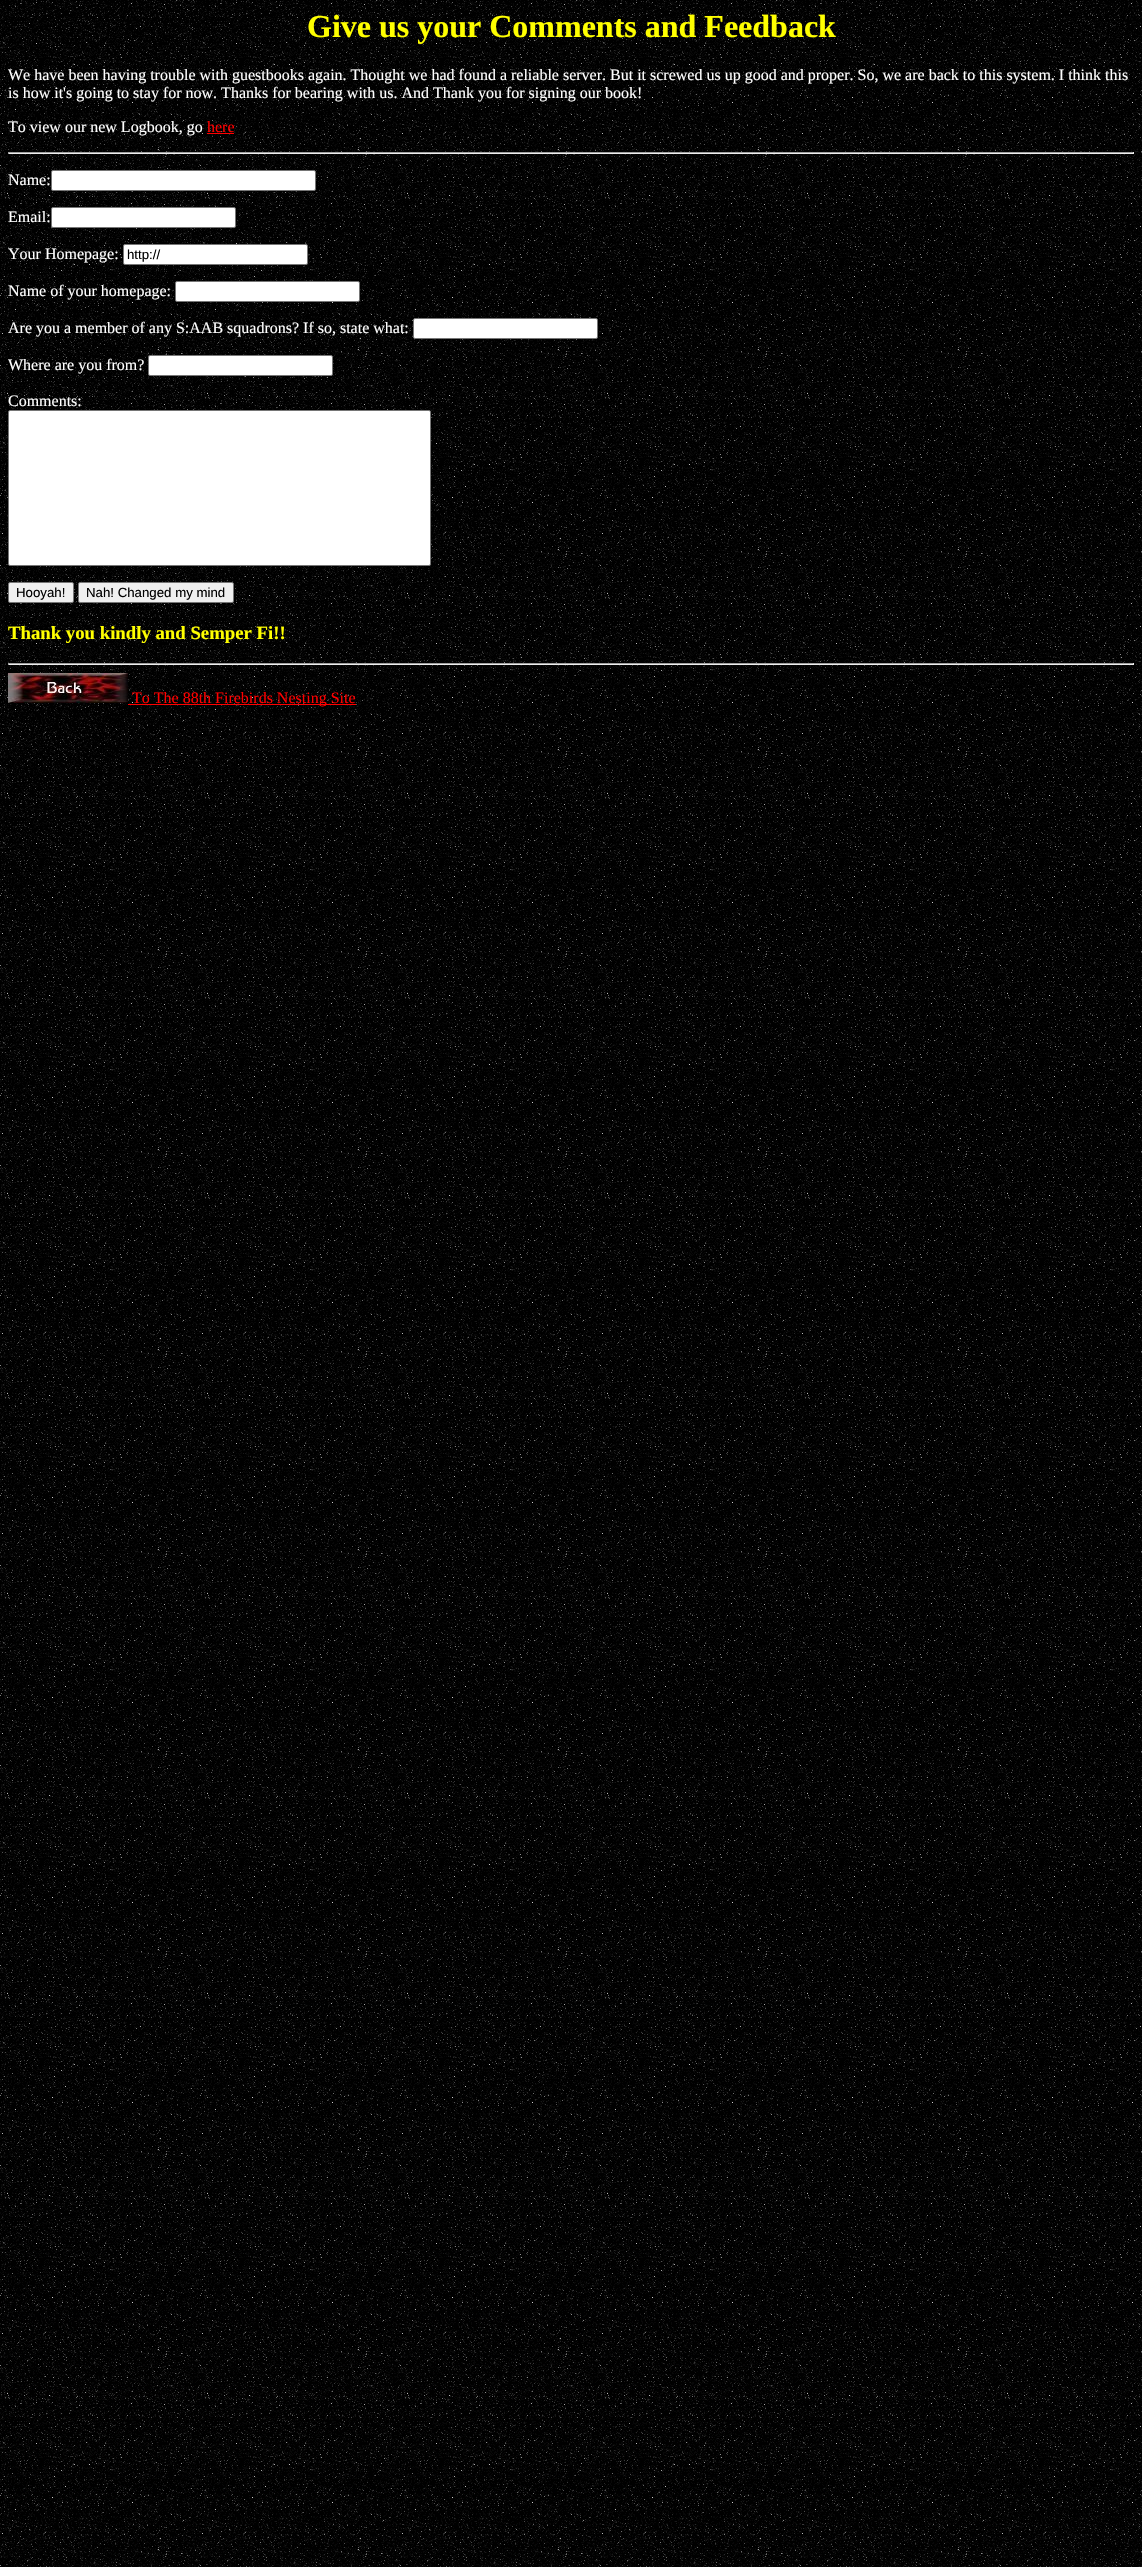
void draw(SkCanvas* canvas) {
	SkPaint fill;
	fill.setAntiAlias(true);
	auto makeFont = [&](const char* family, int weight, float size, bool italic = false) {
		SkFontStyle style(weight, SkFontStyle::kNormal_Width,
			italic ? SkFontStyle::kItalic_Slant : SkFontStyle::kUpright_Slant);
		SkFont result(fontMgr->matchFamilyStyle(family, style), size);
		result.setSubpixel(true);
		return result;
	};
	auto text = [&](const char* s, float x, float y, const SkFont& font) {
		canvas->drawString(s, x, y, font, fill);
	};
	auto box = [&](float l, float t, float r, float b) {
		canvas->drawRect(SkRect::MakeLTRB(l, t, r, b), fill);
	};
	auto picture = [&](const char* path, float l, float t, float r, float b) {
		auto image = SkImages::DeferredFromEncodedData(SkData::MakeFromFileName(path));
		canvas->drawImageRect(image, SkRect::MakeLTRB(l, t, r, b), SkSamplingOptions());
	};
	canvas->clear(0xFFFFFFFF);
	picture("image0.png", 0, 0, 1142, 2567);
	fill.setColor(0xFFFF0000);
	box(207, 133, 234, 134);
	fill.setColor(0xFF9F9F9F);
	box(8, 152, 1134, 153);
	fill.setColor(0xFFEEEEEE);
	box(1133, 152, 1134, 154);
	box(8, 153, 1134, 154);
	fill.setColor(0xFF9F9F9F);
	box(8, 152, 9, 154);
	fill.setColor(0xFFFFFFFF);
	canvas->drawRoundRect(SkRect::MakeLTRB(51.5f, 170.5f, 315.5f, 190.5f), 1.5f, 1.5f, fill);
	fill.setStyle(SkPaint::kStroke_Style);
	fill.setStrokeWidth(1);
	fill.setColor(0xFF767676);
	canvas->drawRoundRect(SkRect::MakeLTRB(51.5f, 170.5f, 315.5f, 190.5f), 1.5f, 1.5f, fill);
	fill.setStyle(SkPaint::kFill_Style);
	fill.setColor(0xFFFFFFFF);
	canvas->drawRoundRect(SkRect::MakeLTRB(51.5f, 207.5f, 235.5f, 227.5f), 1.5f, 1.5f, fill);
	fill.setStyle(SkPaint::kStroke_Style);
	fill.setColor(0xFF767676);
	canvas->drawRoundRect(SkRect::MakeLTRB(51.5f, 207.5f, 235.5f, 227.5f), 1.5f, 1.5f, fill);
	fill.setStyle(SkPaint::kFill_Style);
	fill.setColor(0xFFFFFFFF);
	canvas->drawRoundRect(SkRect::MakeLTRB(123.5f, 244.5f, 307.5f, 264.5f), 1.5f, 1.5f, fill);
	fill.setStyle(SkPaint::kStroke_Style);
	fill.setColor(0xFF767676);
	canvas->drawRoundRect(SkRect::MakeLTRB(123.5f, 244.5f, 307.5f, 264.5f), 1.5f, 1.5f, fill);
	fill.setStyle(SkPaint::kFill_Style);
	fill.setColor(0xFFFFFFFF);
	canvas->drawRoundRect(SkRect::MakeLTRB(175.5f, 281.5f, 359.5f, 301.5f), 1.5f, 1.5f, fill);
	fill.setStyle(SkPaint::kStroke_Style);
	fill.setColor(0xFF767676);
	canvas->drawRoundRect(SkRect::MakeLTRB(175.5f, 281.5f, 359.5f, 301.5f), 1.5f, 1.5f, fill);
	fill.setStyle(SkPaint::kFill_Style);
	fill.setColor(0xFFFFFFFF);
	canvas->drawRoundRect(SkRect::MakeLTRB(413.5f, 318.5f, 597.5f, 338.5f), 1.5f, 1.5f, fill);
	fill.setStyle(SkPaint::kStroke_Style);
	fill.setColor(0xFF767676);
	canvas->drawRoundRect(SkRect::MakeLTRB(413.5f, 318.5f, 597.5f, 338.5f), 1.5f, 1.5f, fill);
	fill.setStyle(SkPaint::kFill_Style);
	fill.setColor(0xFFFFFFFF);
	canvas->drawRoundRect(SkRect::MakeLTRB(148.5f, 355.5f, 332.5f, 375.5f), 1.5f, 1.5f, fill);
	fill.setStyle(SkPaint::kStroke_Style);
	fill.setColor(0xFF767676);
	canvas->drawRoundRect(SkRect::MakeLTRB(148.5f, 355.5f, 332.5f, 375.5f), 1.5f, 1.5f, fill);
	fill.setStyle(SkPaint::kFill_Style);
	fill.setColor(0xFFFFFFFF);
	canvas->drawRoundRect(SkRect::MakeLTRB(8.5f, 410.5f, 430.5f, 565.5f), 1.5f, 1.5f, fill);
	fill.setStyle(SkPaint::kStroke_Style);
	fill.setColor(0xFF767676);
	canvas->drawRoundRect(SkRect::MakeLTRB(8.5f, 410.5f, 430.5f, 565.5f), 1.5f, 1.5f, fill);
	fill.setStyle(SkPaint::kFill_Style);
	fill.setColor(0xFFEFEFEF);
	canvas->drawRoundRect(SkRect::MakeLTRB(8.5f, 582.5f, 73.5f, 602.5f), 1.5f, 1.5f, fill);
	fill.setStyle(SkPaint::kStroke_Style);
	fill.setColor(0xFF767676);
	canvas->drawRoundRect(SkRect::MakeLTRB(8.5f, 582.5f, 73.5f, 602.5f), 1.5f, 1.5f, fill);
	fill.setStyle(SkPaint::kFill_Style);
	fill.setColor(0xFFEFEFEF);
	canvas->drawRoundRect(SkRect::MakeLTRB(78.5f, 582.5f, 233.5f, 602.5f), 1.5f, 1.5f, fill);
	fill.setStyle(SkPaint::kStroke_Style);
	fill.setColor(0xFF767676);
	canvas->drawRoundRect(SkRect::MakeLTRB(78.5f, 582.5f, 233.5f, 602.5f), 1.5f, 1.5f, fill);
	fill.setStyle(SkPaint::kFill_Style);
	fill.setColor(0xFF9F9F9F);
	box(8, 663, 1134, 664);
	fill.setColor(0xFFEEEEEE);
	box(1133, 663, 1134, 665);
	box(8, 664, 1134, 665);
	fill.setColor(0xFF9F9F9F);
	box(8, 663, 9, 665);
	picture("image1.png", 8, 673, 128, 703);
	fill.setColor(0xFFFF0000);
	box(128, 704, 356, 705);
	auto font1 = makeFont("Liberation Serif", 700, 32);
	fill.setColor(0xFFFFFF00);
	text("Give us your Comments and Feedback", 307, 37, font1);
	auto font2 = makeFont("Liberation Serif", 400, 16);
	fill.setColor(0xFFFFFFFF);
	text("We have been having trouble with guestbooks again. Thought we had found a reliable server. But it screwed us up good and proper. So, we are back to this system. I think this", 8, 80, font2);
	text("is how it's going to stay for now. Thanks for bearing with us. And Thank you for signing our book!", 8, 98, font2);
	text("To view our new Logbook, go", 8, 132, font2);
	fill.setColor(0xFFFF0000);
	text("here", 207, 132, font2);
	fill.setColor(0xFFFFFFFF);
	text("Name:", 8, 185, font2);
	text("Email:", 8, 222, font2);
	text("Your Homepage:", 8, 259, font2);
	auto font3 = makeFont("Liberation Sans", 400, 13.25f);
	fill.setColor(0xFF000000);
	text("http://", 127, 259, font3);
	fill.setColor(0xFFFFFFFF);
	text("Name of your homepage:", 8, 296, font2);
	text("Are you a member of any S:AAB squadrons? If so, state what:", 8, 333, font2);
	text("Where are you from?", 8, 370, font2);
	text("Comments:", 8, 406, font2);
	fill.setColor(0xFF000000);
	text("Hooyah!", 16, 597, font3);
	text("Nah! Changed my mind", 86, 597, font3);
	auto font4 = makeFont("Liberation Serif", 700, 18.75f);
	fill.setColor(0xFFFFFF00);
	text("Thank you kindly and Semper Fi!!", 8, 639, font4);
	fill.setColor(0xFFFF0000);
	text("To The 88th Firebirds Nesting Site", 132, 703, font2);
}
